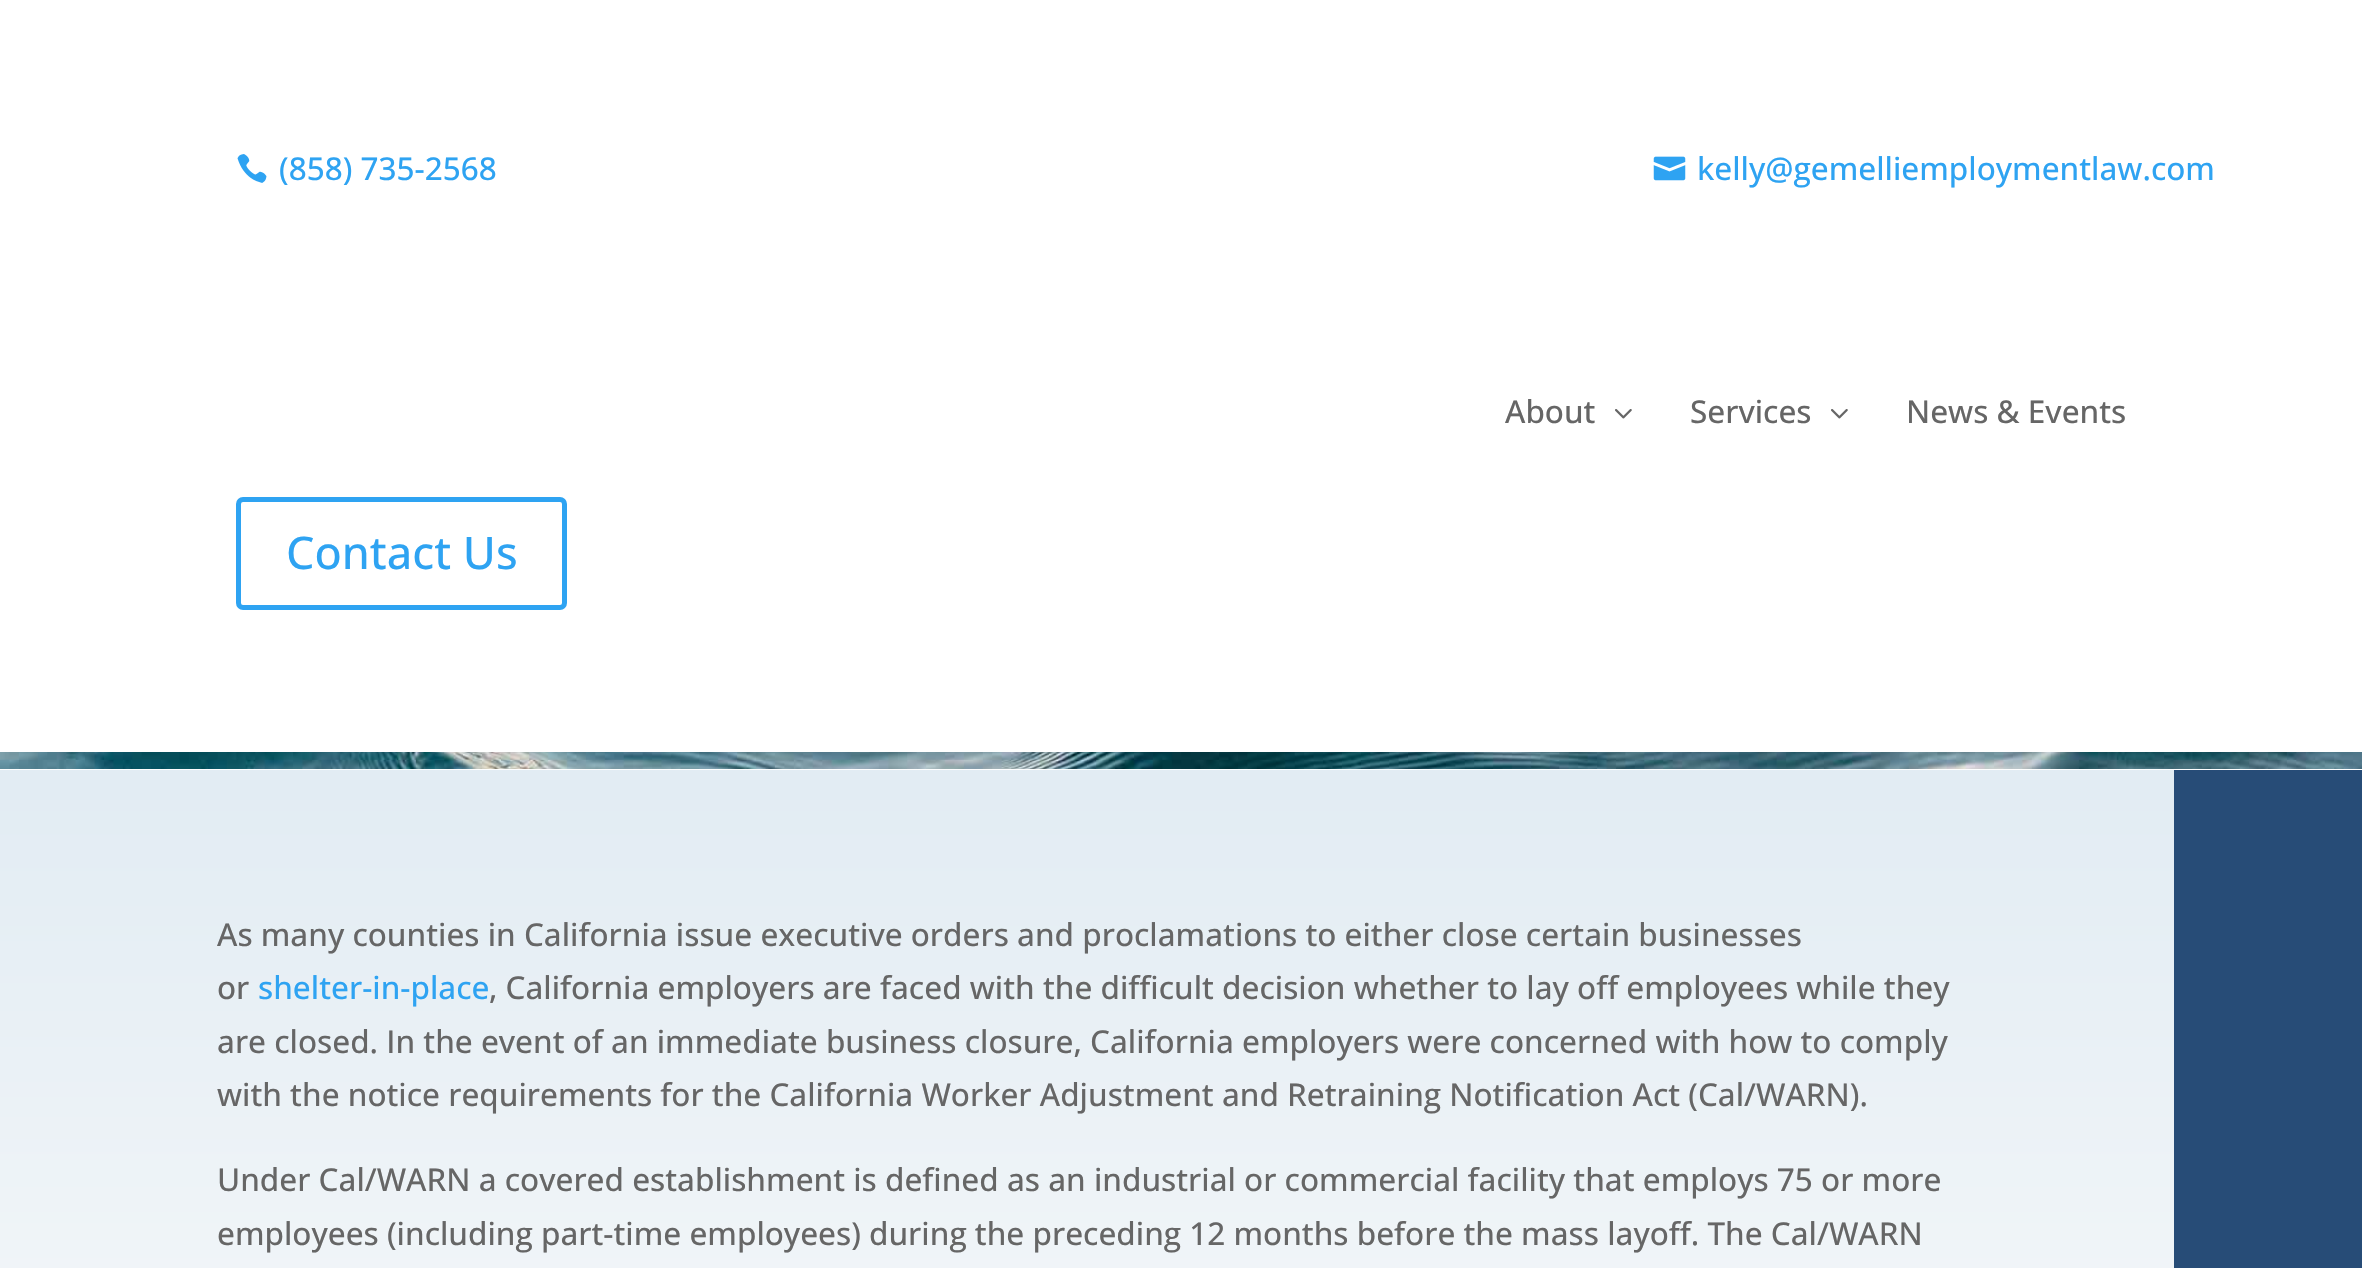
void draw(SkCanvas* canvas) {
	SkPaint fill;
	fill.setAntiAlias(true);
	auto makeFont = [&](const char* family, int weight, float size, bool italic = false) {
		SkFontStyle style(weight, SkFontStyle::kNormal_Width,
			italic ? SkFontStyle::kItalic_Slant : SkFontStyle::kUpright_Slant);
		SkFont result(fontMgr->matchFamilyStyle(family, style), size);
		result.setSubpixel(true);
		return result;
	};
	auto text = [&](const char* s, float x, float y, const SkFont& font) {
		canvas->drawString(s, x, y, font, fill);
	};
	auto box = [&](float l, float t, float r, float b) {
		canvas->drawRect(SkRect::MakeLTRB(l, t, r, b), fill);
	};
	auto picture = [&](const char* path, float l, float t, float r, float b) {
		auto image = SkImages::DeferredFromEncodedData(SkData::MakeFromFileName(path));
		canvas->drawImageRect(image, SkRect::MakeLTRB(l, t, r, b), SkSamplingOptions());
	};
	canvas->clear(0xFFFFFFFF);
	picture("image0.png", 237, 154, 267, 183);
	picture("image1.png", 1653, 156, 1686, 181);
	picture("image2.png", 1615, 409, 1632, 419);
	picture("image2.png", 1831, 409, 1848, 419);
	fill.setStyle(SkPaint::kStroke_Style);
	fill.setStrokeWidth(5);
	fill.setColor(0xFF2EA3F2);
	canvas->drawRoundRect(SkRect::MakeLTRB(238.5f, 499.5f, 564.5f, 607.5f), 4.5f, 4.5f, fill);
	picture("image3.png", 0, 752, 2362, 769);
	fill.setStyle(SkPaint::kFill_Style);
	{
		const SkColor colors[] = {0xFFE2ECF3, 0xFFFCFCFC, 0xFFFFFFFF};
		const float stops[] = {0.01f, 0.68f, 1};
		const SkPoint ends[] = {{1087, 769}, {1087, 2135}};
		fill.setShader(SkGradientShader::MakeLinear(ends, colors, stops, 3, SkTileMode::kClamp));
		fill.setAlpha(255);
	}
	box(0, 770, 2174, 1268);
	fill.setShader(nullptr);
	fill.setColor(0xFF274C77);
	box(2174, 770, 2362, 1268);
	auto font1 = makeFont("Open Sans", 500, 31.5f);
	fill.setColor(0xFF2EA3F2);
	text("(858) 735-2568", 279, 180, font1);
	text("kelly@gemelliemploymentlaw.com", 1697, 180, font1);
	fill.setColor(0xFF666666);
	text("About", 1505, 423, font1);
	text("Services", 1690, 423, font1);
	text("News & Events", 1906, 423, font1);
	auto font2 = makeFont("Open Sans", 500, 45);
	fill.setColor(0xFF2EA3F2);
	text("Contact Us", 286, 569, font2);
	fill.setColor(0xFF666666);
	text("As many counties in California issue executive orders and proclamations to either close certain businesses", 217, 946, font1);
	text("or", 217, 999, font1);
	fill.setColor(0xFF2EA3F2);
	text("shelter-in-place", 258, 999, font1);
	fill.setColor(0xFF666666);
	text(", California employers are faced with the difficult decision whether to lay off employees while they", 489, 999, font1);
	text("are closed. In the event of an immediate business closure, California employers were concerned with how to comply", 217, 1053, font1);
	text("with the notice requirements for the California Worker Adjustment and Retraining Notification Act (Cal/WARN).", 217, 1106, font1);
	text("Under Cal/WARN a covered establishment is defined as an industrial or commercial facility that employs 75 or more", 217, 1191, font1);
	text("employees (including part-time employees) during the preceding 12 months before the mass layoff. The Cal/WARN", 217, 1245, font1);
}
